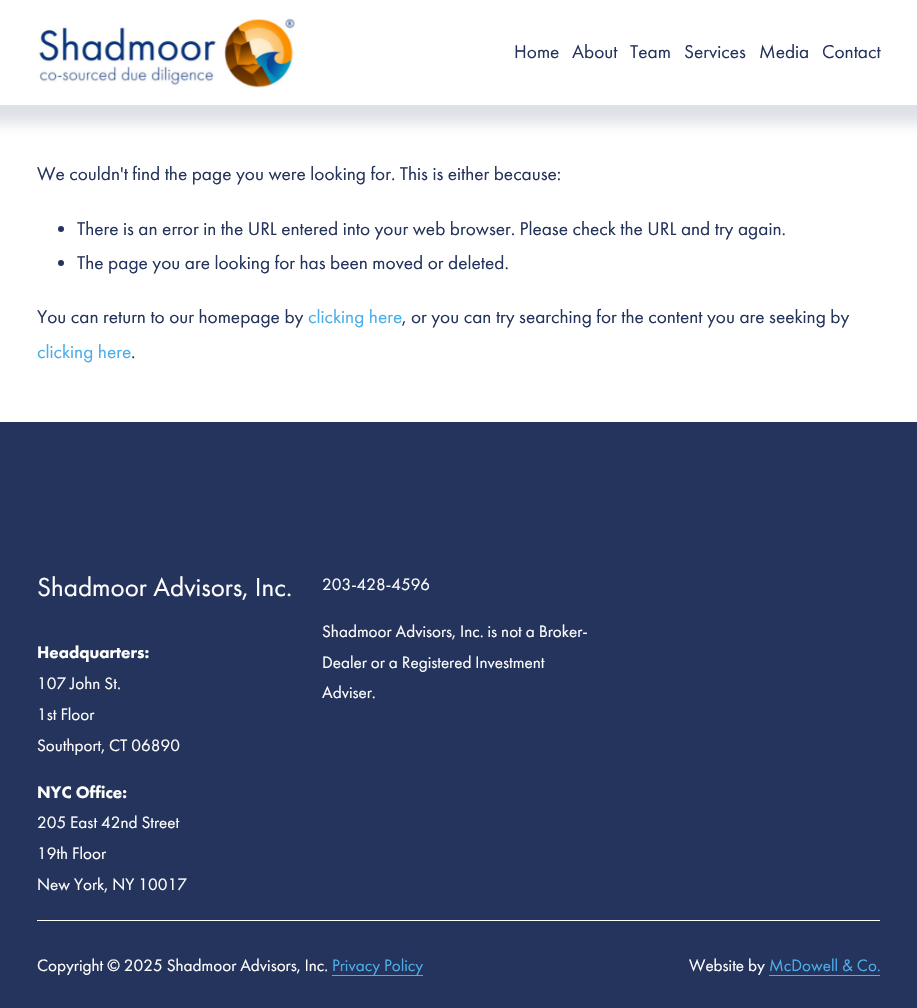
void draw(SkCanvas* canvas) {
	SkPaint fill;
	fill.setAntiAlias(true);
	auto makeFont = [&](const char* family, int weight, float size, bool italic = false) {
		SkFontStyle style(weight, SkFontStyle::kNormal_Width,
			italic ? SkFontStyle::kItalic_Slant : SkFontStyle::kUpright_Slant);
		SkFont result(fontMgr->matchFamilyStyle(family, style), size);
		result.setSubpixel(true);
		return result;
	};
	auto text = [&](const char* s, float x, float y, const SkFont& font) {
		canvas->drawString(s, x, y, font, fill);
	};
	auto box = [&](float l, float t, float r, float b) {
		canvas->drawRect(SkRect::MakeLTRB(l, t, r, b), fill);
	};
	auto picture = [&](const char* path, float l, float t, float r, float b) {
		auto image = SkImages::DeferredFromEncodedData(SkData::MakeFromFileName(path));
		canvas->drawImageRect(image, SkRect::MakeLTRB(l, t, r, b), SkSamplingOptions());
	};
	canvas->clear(0xFFFFFFFF);
	canvas->save();
	canvas->clipRect(SkRect::MakeLTRB(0, 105, 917, 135));
	fill.setColor(0xFFDEE1E7);
	fill.setMaskFilter(SkMaskFilter::MakeBlur(kNormal_SkBlurStyle, 6));
	canvas->drawRect(SkRect::MakeLTRB(-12, -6, 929, 123), fill);
	fill.setMaskFilter(nullptr);
	canvas->restore();
	picture("image0.png", 37, 18, 295, 88);
	fill.setColor(0xFF24345C);
	canvas->drawCircle(61, 229, 3, fill);
	canvas->drawCircle(61, 263, 3, fill);
	box(0, 422, 917, 1008);
	fill.setColor(0xFFFFFFFF);
	box(37, 920, 880, 921);
	fill.setColor(0xFF4CAEE9);
	box(332, 975, 423, 976);
	box(769, 975, 880, 976);
	auto font1 = makeFont("Futura PT", 400, 19.3f);
	fill.setColor(0xFF24345C);
	text("Home", 514, 58, font1);
	text("About", 572, 58, font1);
	text("Team", 630, 58, font1);
	text("Services", 684, 58, font1);
	text("Media", 759, 58, font1);
	text("Contact", 822, 58, font1);
	text("We couldn't find the page you were looking for. This is either because:", 37, 180, font1);
	text("There is an error in the URL entered into your web browser. Please check the URL and try again.", 77, 235, font1);
	text("The page you are looking for has been moved or deleted.", 77, 269, font1);
	text("You can return to our homepage by", 37, 323, font1);
	fill.setColor(0xFF4CAEE9);
	text("clicking here", 308, 323, font1);
	fill.setColor(0xFF24345C);
	text(", or you can try searching for the content you are seeking by", 402, 323, font1);
	fill.setColor(0xFF4CAEE9);
	text("clicking here", 37, 358, font1);
	fill.setColor(0xFF24345C);
	text(".", 131, 358, font1);
	auto font2 = makeFont("Futura PT", 400, 27);
	fill.setColor(0xFFFFFFFF);
	text("Shadmoor Advisors, Inc.", 37, 596, font2);
	auto font3 = makeFont("Futura PT", 900, 17.1f);
	text("Headquarters:", 37, 658, font3);
	auto font4 = makeFont("Futura PT", 400, 17.1f);
	text("107 John St.", 37, 689, font4);
	text("1st Floor", 37, 720, font4);
	text("Southport, CT 06890", 37, 751, font4);
	text("NYC Office:", 37, 798, font3);
	text("205 East 42nd Street", 37, 828, font4);
	text("19th Floor", 37, 859, font4);
	text("New York, NY 10017", 37, 890, font4);
	text("203-428-4596", 322, 590, font4);
	text("Shadmoor Advisors, Inc. is not a Broker-", 322, 637, font4);
	text("Dealer or a Registered Investment", 322, 668, font4);
	text("Adviser.", 322, 698, font4);
	text("Copyright © 2025 Shadmoor Advisors, Inc.", 37, 971, font4);
	fill.setColor(0xFF4CAEE9);
	text("Privacy Policy", 332, 971, font4);
	fill.setColor(0xFFFFFFFF);
	text("Website by", 689, 971, font4);
	fill.setColor(0xFF4CAEE9);
	text("McDowell & Co.", 769, 971, font4);
}
